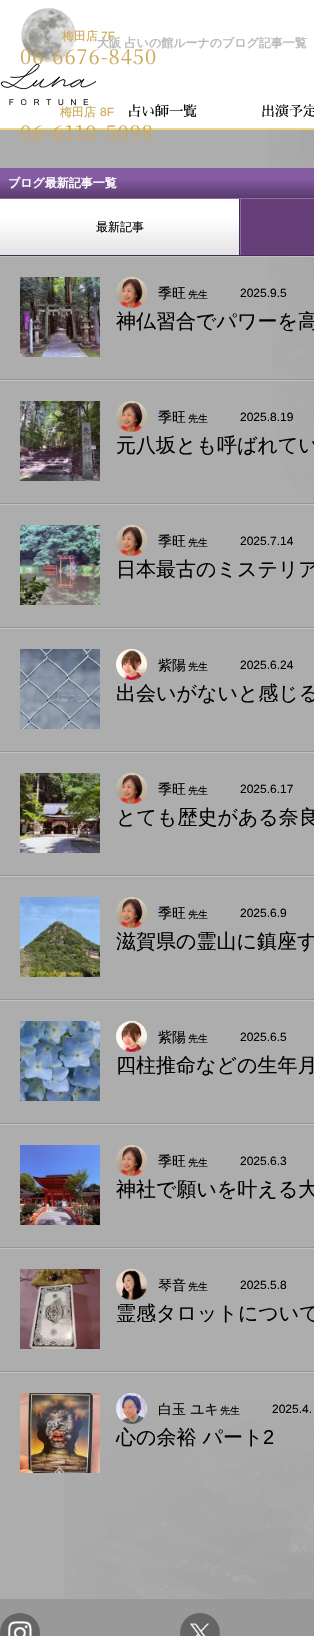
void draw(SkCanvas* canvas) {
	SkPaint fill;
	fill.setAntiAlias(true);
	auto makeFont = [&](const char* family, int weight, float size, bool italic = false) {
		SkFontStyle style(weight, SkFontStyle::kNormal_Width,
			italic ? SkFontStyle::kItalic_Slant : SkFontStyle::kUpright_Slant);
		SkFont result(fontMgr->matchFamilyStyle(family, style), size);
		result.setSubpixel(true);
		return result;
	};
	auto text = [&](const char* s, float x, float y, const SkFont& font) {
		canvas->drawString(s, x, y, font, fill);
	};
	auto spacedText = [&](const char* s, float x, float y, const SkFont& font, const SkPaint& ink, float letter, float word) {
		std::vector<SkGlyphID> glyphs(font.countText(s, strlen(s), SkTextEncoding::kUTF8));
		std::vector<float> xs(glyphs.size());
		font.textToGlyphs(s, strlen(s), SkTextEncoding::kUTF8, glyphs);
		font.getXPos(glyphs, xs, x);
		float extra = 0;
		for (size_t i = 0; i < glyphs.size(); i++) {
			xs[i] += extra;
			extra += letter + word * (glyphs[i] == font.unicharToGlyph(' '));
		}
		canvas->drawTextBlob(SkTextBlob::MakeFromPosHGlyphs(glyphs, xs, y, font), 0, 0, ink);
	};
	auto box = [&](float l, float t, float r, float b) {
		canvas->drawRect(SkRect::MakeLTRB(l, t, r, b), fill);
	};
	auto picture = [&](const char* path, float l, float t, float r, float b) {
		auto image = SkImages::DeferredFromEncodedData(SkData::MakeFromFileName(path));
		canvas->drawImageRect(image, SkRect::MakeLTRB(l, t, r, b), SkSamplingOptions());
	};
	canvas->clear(0xFFFFFFFF);
	fill.setColor(0xFFECD880);
	box(0, 128, 314, 130);
	picture("image0.png", 0, 8, 96, 106);
	fill.setColor(0xFFADADAD);
	box(0, 130, 314, 1599);
	picture("image1.png", 64, 130, 314, 1599);
	picture("image2.png", 0, 168, 314, 198);
	fill.setColor(0xFF9766AE);
	box(0, 198, 314, 199);
	fill.setColor(0xFF432E52);
	box(0, 255, 314, 256);
	{
		const SkColor colors[] = {0xFFE2E2E2, 0xFFFFFFFF};
		const float stops[] = {0, 0.65f};
		const SkPoint ends[] = {{120, 255}, {120, 199}};
		fill.setShader(SkGradientShader::MakeLinear(ends, colors, stops, 2, SkTileMode::kClamp));
		fill.setAlpha(255);
	}
	box(0, 199, 239, 255);
	fill.setShader(nullptr);
	fill.setColor(0xFF432E52);
	box(239, 199, 240, 255);
	fill.setColor(0xFF663F78);
	box(241, 199, 314, 255);
	fill.setColor(0xFF9766AE);
	box(240, 199, 241, 255);
	fill.setColor(0xFFC1C1C1);
	box(0, 256, 314, 257);
	fill.setColor(0xFF969696);
	box(0, 379, 314, 380);
	picture("image3.png", 20, 277, 100, 357);
	picture("image4.png", 116, 277, 147, 308);
	fill.setColor(0xFFC1C1C1);
	box(0, 380, 314, 381);
	fill.setColor(0xFF969696);
	box(0, 503, 314, 504);
	picture("image5.png", 20, 401, 100, 481);
	picture("image4.png", 116, 401, 147, 432);
	fill.setColor(0xFFC1C1C1);
	box(0, 504, 314, 505);
	fill.setColor(0xFF969696);
	box(0, 627, 314, 628);
	picture("image6.png", 20, 525, 100, 605);
	picture("image4.png", 116, 525, 147, 556);
	fill.setColor(0xFFC1C1C1);
	box(0, 628, 314, 629);
	fill.setColor(0xFF969696);
	box(0, 751, 314, 752);
	picture("image7.png", 20, 649, 100, 729);
	picture("image8.png", 116, 649, 147, 680);
	fill.setColor(0xFFC1C1C1);
	box(0, 752, 314, 753);
	fill.setColor(0xFF969696);
	box(0, 875, 314, 876);
	picture("image9.png", 20, 773, 100, 853);
	picture("image4.png", 116, 773, 147, 804);
	fill.setColor(0xFFC1C1C1);
	box(0, 876, 314, 877);
	fill.setColor(0xFF969696);
	box(0, 999, 314, 1000);
	picture("image10.png", 20, 897, 100, 977);
	picture("image4.png", 116, 897, 147, 928);
	fill.setColor(0xFFC1C1C1);
	box(0, 1000, 314, 1001);
	fill.setColor(0xFF969696);
	box(0, 1123, 314, 1124);
	picture("image11.png", 20, 1021, 100, 1101);
	picture("image8.png", 116, 1021, 147, 1052);
	fill.setColor(0xFFC1C1C1);
	box(0, 1124, 314, 1125);
	fill.setColor(0xFF969696);
	box(0, 1247, 314, 1248);
	picture("image12.png", 20, 1145, 100, 1225);
	picture("image4.png", 116, 1145, 147, 1176);
	fill.setColor(0xFFC1C1C1);
	box(0, 1248, 314, 1249);
	fill.setColor(0xFF969696);
	box(0, 1371, 314, 1372);
	picture("image13.png", 20, 1269, 100, 1349);
	picture("image14.png", 116, 1269, 147, 1300);
	fill.setColor(0xFFC1C1C1);
	box(0, 1372, 314, 1373);
	picture("image15.png", 20, 1393, 100, 1473);
	picture("image16.png", 116, 1393, 147, 1424);
	fill.setColor(0xFF999999);
	box(0, 1599, 314, 1636);
	picture("image17.png", 0, 1613, 40, 1636);
	picture("image18.png", 180, 1613, 220, 1636);
	auto font1 = makeFont("Liberation Sans", 400, 12);
	fill.setColor(0xFFCEA856);
	text("7F", 101, 40, font1);
	auto font2 = makeFont("Noto Serif JP", 200, 20);
	spacedText("06-6676-8450", 20, 64, font2, fill, 1, 0);
	auto font3 = makeFont("WenQuanYi Zen Hei", 500, 12);
	text("梅田店", 60, 116, font3);
	text("8F", 100, 116, font1);
	spacedText("06-6110-5098", 20, 140, font2, fill, 1, 0);
	auto font4 = makeFont("WenQuanYi Zen Hei", 700, 12);
	fill.setColor(0xFFBABABA);
	text("大阪 占いの館ルーナのブログ記事一覧", 97, 47, font4);
	fill.setColor(0xFFCEA856);
	text("梅田店", 62, 40, font3);
	auto font5 = makeFont("Sawarabi Mincho", 400, 14);
	fill.setColor(0xFF000000);
	text("占い師一覧", 127, 116, font5);
	text("出演予定", 261, 116, font5);
	fill.setColor(0xFFFFFFFF);
	text("ブログ最新記事一覧", 8, 187, font4);
	fill.setColor(0xFF000000);
	text("最新記事", 96, 231, font3);
	auto font6 = makeFont("WenQuanYi Zen Hei", 500, 14);
	text("季旺", 158, 298, font6);
	auto font7 = makeFont("WenQuanYi Zen Hei", 500, 10);
	text("先生", 188, 298, font7);
	text("2025.9.5", 240, 297, font1);
	auto font8 = makeFont("WenQuanYi Zen Hei", 500, 20);
	text("神仏習合でパワーを高", 116, 328, font8);
	text("季旺", 158, 422, font6);
	text("先生", 188, 422, font7);
	text("2025.8.19", 240, 421, font1);
	text("元八坂とも呼ばれてい", 116, 452, font8);
	text("季旺", 158, 546, font6);
	text("先生", 188, 546, font7);
	text("2025.7.14", 240, 545, font1);
	text("日本最古のミステリア", 116, 576, font8);
	text("紫陽", 158, 670, font6);
	text("先生", 188, 670, font7);
	text("2025.6.24", 240, 669, font1);
	text("出会いがないと感じる", 116, 700, font8);
	text("季旺", 158, 794, font6);
	text("先生", 188, 794, font7);
	text("2025.6.17", 240, 793, font1);
	text("とても歴史がある奈良", 116, 824, font8);
	text("季旺", 158, 918, font6);
	text("先生", 188, 918, font7);
	text("2025.6.9", 240, 917, font1);
	text("滋賀県の霊山に鎮座す", 116, 948, font8);
	text("紫陽", 158, 1042, font6);
	text("先生", 188, 1042, font7);
	text("2025.6.5", 240, 1041, font1);
	text("四柱推命などの生年月", 116, 1072, font8);
	text("季旺", 158, 1166, font6);
	text("先生", 188, 1166, font7);
	text("2025.6.3", 240, 1165, font1);
	text("神社で願いを叶える大", 116, 1196, font8);
	text("琴音", 158, 1290, font6);
	text("先生", 188, 1290, font7);
	text("2025.5.8", 240, 1289, font1);
	text("霊感タロットについて", 116, 1320, font8);
	text("白玉 ユキ", 158, 1414, font6);
	text("先生", 220, 1414, font7);
	text("2025.4.", 272, 1413, font1);
	text("心の余裕 パート", 116, 1444, font8);
	auto font9 = makeFont("Liberation Sans", 400, 20);
	text("2", 263, 1444, font9);
}
